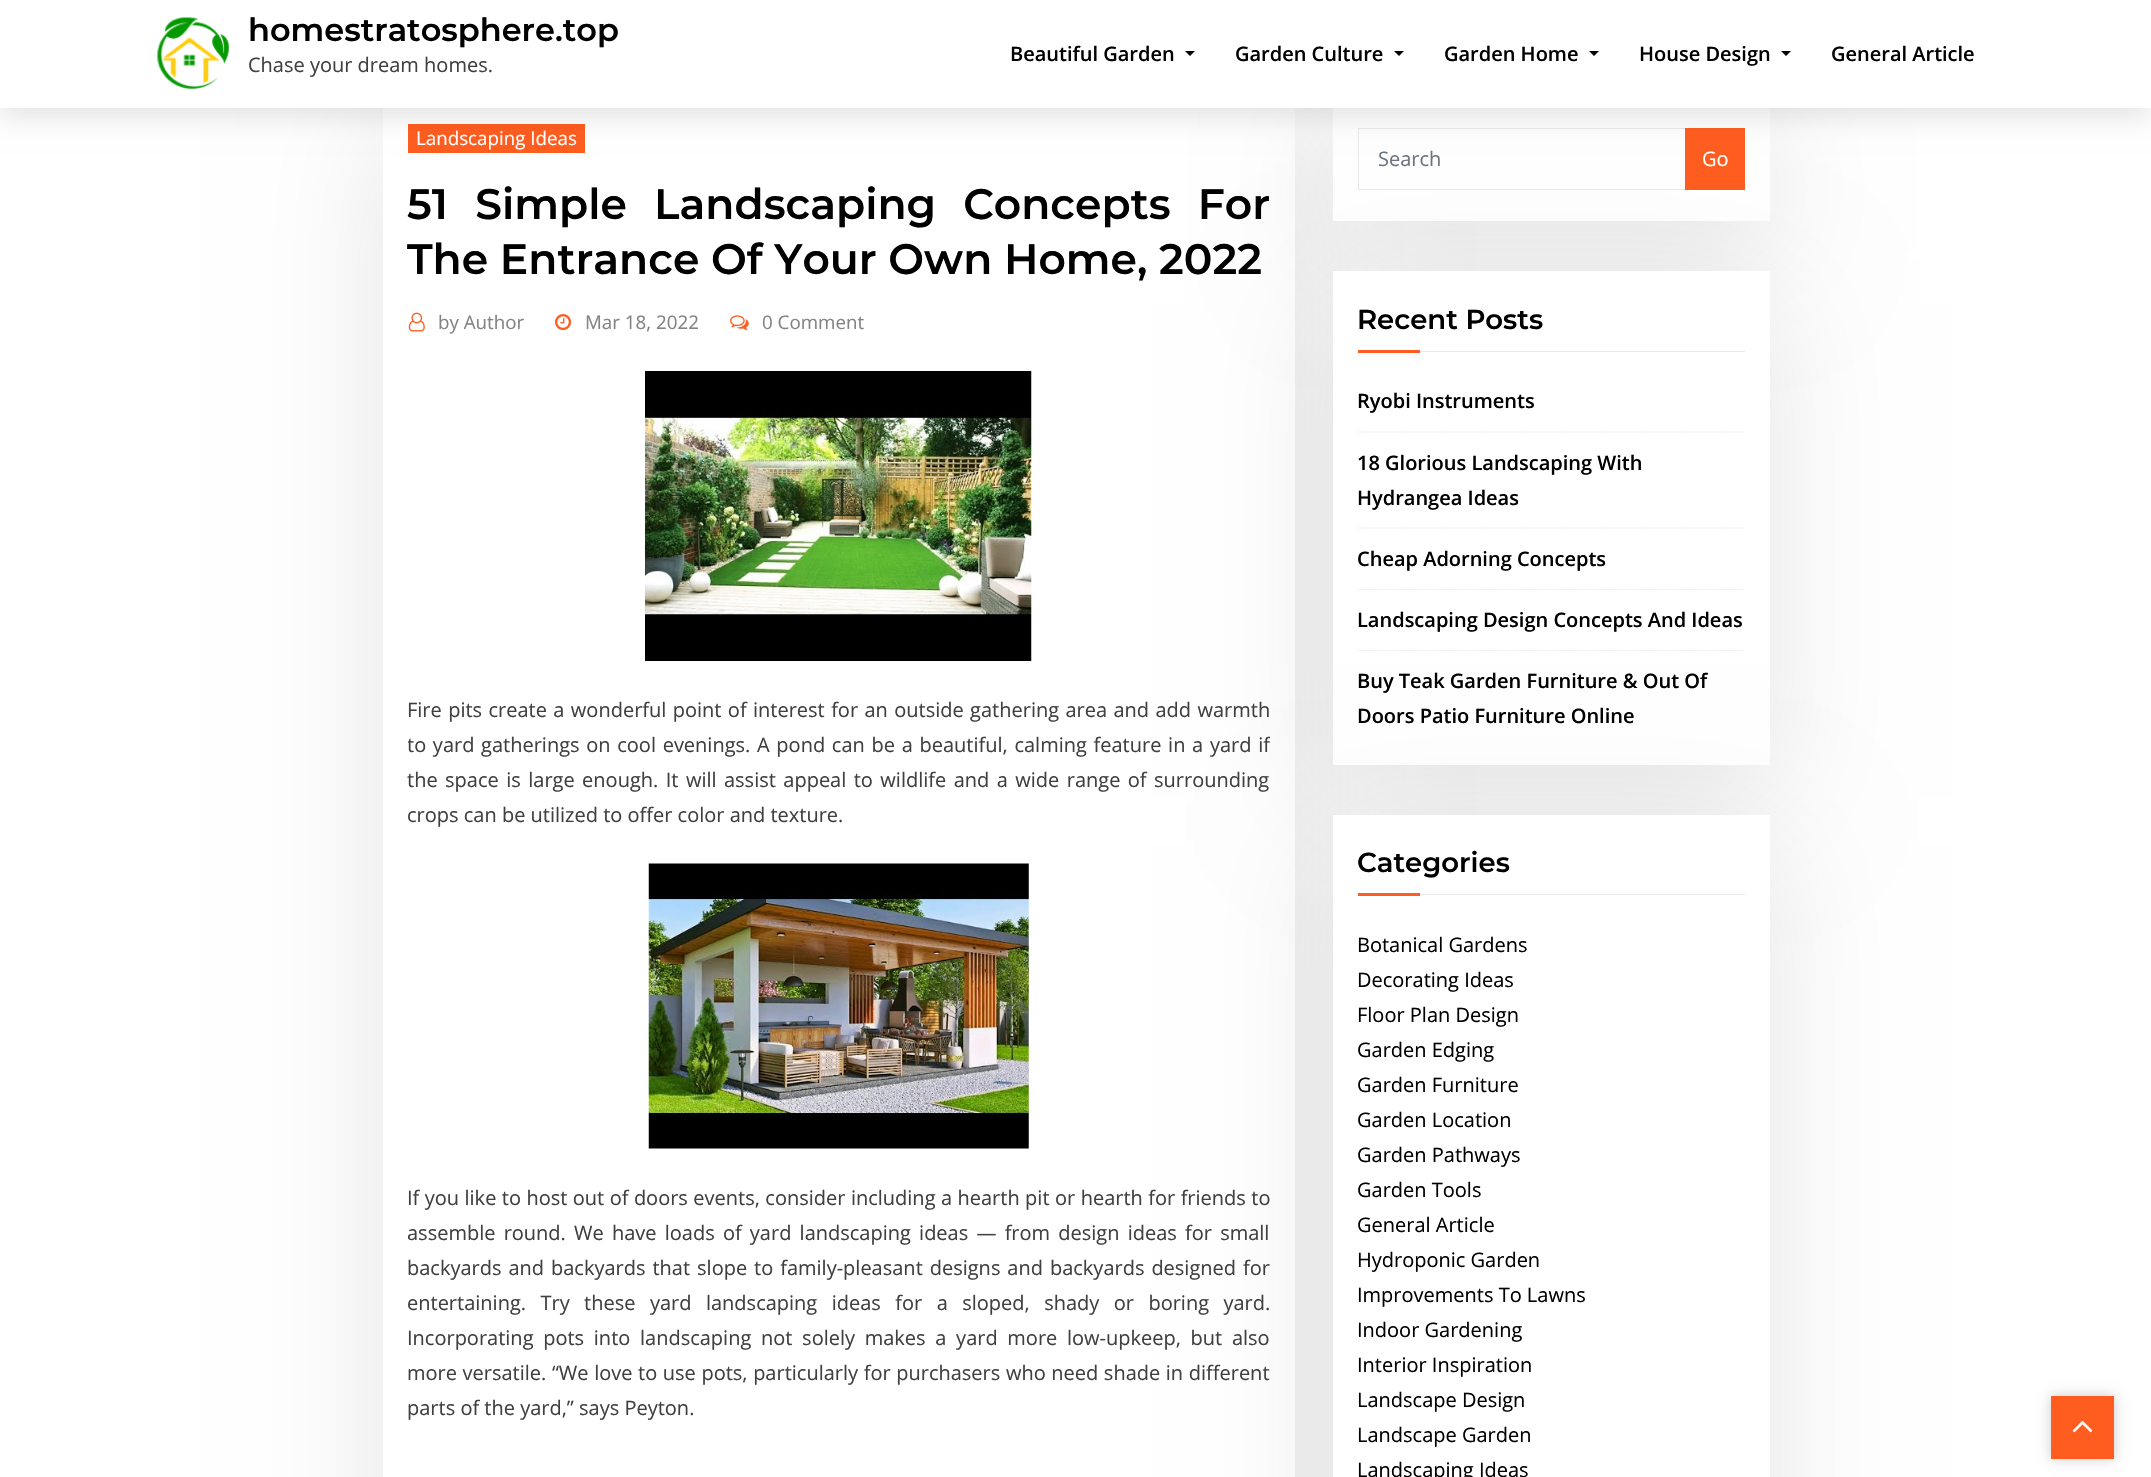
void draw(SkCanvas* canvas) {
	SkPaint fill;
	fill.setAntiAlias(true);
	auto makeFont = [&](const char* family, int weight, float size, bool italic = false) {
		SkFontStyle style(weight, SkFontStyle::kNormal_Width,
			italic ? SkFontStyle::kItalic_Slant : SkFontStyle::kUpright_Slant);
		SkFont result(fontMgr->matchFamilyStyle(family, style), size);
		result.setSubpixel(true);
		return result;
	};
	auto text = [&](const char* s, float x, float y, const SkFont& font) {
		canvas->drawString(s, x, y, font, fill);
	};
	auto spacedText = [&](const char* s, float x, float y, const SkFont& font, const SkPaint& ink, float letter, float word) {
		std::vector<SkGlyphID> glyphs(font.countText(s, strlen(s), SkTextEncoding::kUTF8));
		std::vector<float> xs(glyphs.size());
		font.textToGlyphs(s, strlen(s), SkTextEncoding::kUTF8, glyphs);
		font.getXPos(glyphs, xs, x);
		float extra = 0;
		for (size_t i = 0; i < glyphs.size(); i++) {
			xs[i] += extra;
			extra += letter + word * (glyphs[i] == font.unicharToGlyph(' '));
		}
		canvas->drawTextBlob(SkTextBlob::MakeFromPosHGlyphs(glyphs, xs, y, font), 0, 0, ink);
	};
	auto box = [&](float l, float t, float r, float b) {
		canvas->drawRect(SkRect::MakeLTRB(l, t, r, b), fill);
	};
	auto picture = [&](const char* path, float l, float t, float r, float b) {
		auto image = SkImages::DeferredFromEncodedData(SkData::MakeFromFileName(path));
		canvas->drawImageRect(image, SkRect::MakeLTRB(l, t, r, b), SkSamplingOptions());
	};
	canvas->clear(0xFFFFFFFF);
	fill.setColor(0x1A000000);
	fill.setMaskFilter(SkMaskFilter::MakeBlur(kNormal_SkBlurStyle, 61));
	canvas->drawRect(SkRect::MakeLTRB(383, 128, 1295, 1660), fill);
	fill.setMaskFilter(nullptr);
	fill.setColor(0xFFFFFFFF);
	box(383, 108, 1295, 1477);
	fill.setColor(0xFFFF5D20);
	box(408, 124, 585, 153);
	fill.setColor(0x1A000000);
	fill.setMaskFilter(SkMaskFilter::MakeBlur(kNormal_SkBlurStyle, 61));
	canvas->drawRect(SkRect::MakeLTRB(1333, 128, 1770, 253), fill);
	fill.setMaskFilter(nullptr);
	fill.setColor(0xFFFFFFFF);
	box(1333, 108, 1770, 221);
	fill.setColor(0x1A000000);
	fill.setMaskFilter(SkMaskFilter::MakeBlur(kNormal_SkBlurStyle, 61));
	canvas->drawRect(SkRect::MakeLTRB(1333, 303, 1770, 796), fill);
	fill.setMaskFilter(nullptr);
	fill.setStyle(SkPaint::kStroke_Style);
	fill.setStrokeWidth(1);
	fill.setColor(0xFFE9E9E9);
	canvas->drawRect(SkRect::MakeLTRB(1358.5f, 128.5f, 1685.5f, 189.5f), fill);
	fill.setStyle(SkPaint::kFill_Style);
	fill.setColor(0xFFFF5D20);
	box(1685, 128, 1745, 190);
	fill.setColor(0x1A000000);
	fill.setMaskFilter(SkMaskFilter::MakeBlur(kNormal_SkBlurStyle, 12.5f));
	canvas->drawRect(SkRect::MakeLTRB(0, 10, 2151, 118), fill);
	fill.setMaskFilter(nullptr);
	fill.setColor(0xFFFFFFFF);
	box(0, 0, 2151, 108);
	picture("image0.png", 157, 17, 229, 89);
	fill.setColor(0xFF000000);
	canvas->drawPath(SkPathBuilder().moveTo(1185, 51).lineTo(1195, 51).lineTo(1190, 56).close().detach(), fill);
	canvas->drawPath(SkPathBuilder().moveTo(1394, 51).lineTo(1404, 51).lineTo(1399, 56).close().detach(), fill);
	canvas->drawPath(SkPathBuilder().moveTo(1589, 51).lineTo(1599, 51).lineTo(1594, 56).close().detach(), fill);
	canvas->drawPath(SkPathBuilder().moveTo(1781, 51).lineTo(1791, 51).lineTo(1786, 56).close().detach(), fill);
	picture("image1.png", 408, 312, 425, 332);
	picture("image2.png", 555, 314, 572, 331);
	picture("image3.png", 730, 315, 749, 330);
	picture("image4.png", 645, 371, 1032, 661);
	picture("image5.png", 648, 863, 1029, 1149);
	fill.setColor(0xFFFFFFFF);
	box(1333, 271, 1770, 765);
	fill.setColor(0xFFE9E9E9);
	box(1420, 351, 1745, 352);
	fill.setColor(0xFFFF5D20);
	box(1358, 350, 1420, 353);
	fill.setStyle(SkPaint::kStroke_Style);
	fill.setStrokeWidth(1.2f);
	fill.setColor(0xFFE6E6E6);
	fill.setPathEffect(SkDashPathEffect::Make({{1.25f, 1.25f}}, 0));
	canvas->drawPath(SkPathBuilder().moveTo(1357.5f, 432).lineTo(1745, 432).detach(), fill);
	fill.setPathEffect(nullptr);
	fill.setPathEffect(SkDashPathEffect::Make({{1.25f, 1.25f}}, 0));
	canvas->drawPath(SkPathBuilder().moveTo(1357.5f, 528).lineTo(1745, 528).detach(), fill);
	fill.setPathEffect(nullptr);
	fill.setPathEffect(SkDashPathEffect::Make({{1.25f, 1.25f}}, 0));
	canvas->drawPath(SkPathBuilder().moveTo(1357.5f, 589.5f).lineTo(1745, 589.5f).detach(), fill);
	fill.setPathEffect(nullptr);
	fill.setPathEffect(SkDashPathEffect::Make({{1.25f, 1.25f}}, 0));
	canvas->drawPath(SkPathBuilder().moveTo(1357.5f, 650.5f).lineTo(1745, 650.5f).detach(), fill);
	fill.setPathEffect(nullptr);
	fill.setStyle(SkPaint::kFill_Style);
	fill.setColor(0x1A000000);
	fill.setMaskFilter(SkMaskFilter::MakeBlur(kNormal_SkBlurStyle, 61));
	canvas->drawRect(SkRect::MakeLTRB(1333, 846, 1770, 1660), fill);
	fill.setMaskFilter(nullptr);
	fill.setColor(0xFFFFFFFF);
	box(1333, 815, 1770, 1477);
	fill.setColor(0xFFE9E9E9);
	box(1420, 894, 1745, 895);
	fill.setColor(0xFFFF5D20);
	box(1358, 893, 1420, 896);
	fill.setColor(0x33000000);
	fill.setMaskFilter(SkMaskFilter::MakeBlur(kNormal_SkBlurStyle, 6));
	canvas->drawRect(SkRect::MakeLTRB(2051, 1396, 2114, 1459), fill);
	fill.setMaskFilter(nullptr);
	fill.setColor(0xFFFF5D20);
	box(2051, 1396, 2114, 1459);
	picture("image6.png", 2072, 1420, 2093, 1433);
	auto font1 = makeFont("Montserrat", 600, 32);
	fill.setColor(0xFF000000);
	text("homestratosphere.top", 248, 41, font1);
	auto font2 = makeFont("Open Sans", 400, 20);
	fill.setColor(0xFF404040);
	text("Chase your dream homes.", 248, 72, font2);
	auto font3 = makeFont("Open Sans", 600, 20);
	fill.setColor(0xFF000000);
	text("Beautiful Garden", 1010, 61, font3);
	text("Garden Culture", 1235, 61, font3);
	text("Garden Home", 1444, 61, font3);
	text("House Design", 1639, 61, font3);
	text("General Article", 1831, 61, font3);
	auto font4 = makeFont("Open Sans", 400, 18.75f);
	fill.setColor(0xFFFFFFFF);
	text("Landscaping Ideas", 416, 145, font4);
	auto font5 = makeFont("Montserrat", 600, 42.5f);
	fill.setColor(0xFF000000);
	spacedText("51 Simple Landscaping Concepts For", 407, 219, font5, fill, 0, 15.5f);
	text("The Entrance Of Your Own Home, 2022", 407, 274, font5);
	fill.setColor(0xFF838383);
	text("by Author", 438, 329, font4);
	text("Mar 18, 2022", 585, 329, font4);
	text("0 Comment", 762, 329, font4);
	fill.setColor(0xFF404040);
	spacedText("Fire pits create a wonderful point of interest for an outside gathering area and add warmth", 407, 717, font2, fill, 0, 1.2f);
	canvas->save();
	canvas->clipRect(SkRect::MakeLTRB(408, 371, 1270, 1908));
	spacedText("to yard gatherings on cool evenings. A pond can be a beautiful, calming feature in a yard if", 407, 752, font2, fill, 0, 1.5f);
	canvas->restore();
	spacedText("the space is large enough. It will assist appeal to wildlife and a wide range of surrounding", 407, 787, font2, fill, 0, 2.25f);
	text("crops can be utilized to offer color and texture.", 407, 822, font2);
	spacedText("If you like to host out of doors events, consider including a hearth pit or hearth for friends to", 407, 1205, font2, fill, 0, 0.25f);
	spacedText("assemble round. We have loads of yard landscaping ideas — from design ideas for small", 407, 1240, font2, fill, 0, 3);
	spacedText("backyards and backyards that slope to family-pleasant designs and backyards designed for", 407, 1275, font2, fill, 0, 1.75f);
	spacedText("entertaining. Try these yard landscaping ideas for a sloped, shady or boring yard.", 407, 1310, font2, fill, 0, 9.25f);
	spacedText("Incorporating pots into landscaping not solely makes a yard more low-upkeep, but also", 407, 1345, font2, fill, 0, 4.5f);
	spacedText("more versatile. “We love to use pots, particularly for purchasers who need shade in different", 407, 1380, font2, fill, 0, 0.4f);
	text("parts of the yard,” says Peyton.", 407, 1415, font2);
	fill.setColor(0xFF6C757D);
	text("Search", 1378, 166, font2);
	fill.setColor(0xFFFFFFFF);
	text("Go", 1702, 166, font2);
	auto font6 = makeFont("Montserrat", 600, 27.5f);
	fill.setColor(0xFF000000);
	text("Recent Posts", 1357, 329, font6);
	text("Ryobi Instruments", 1357, 408, font3);
	text("18 Glorious Landscaping With", 1357, 470, font3);
	text("Hydrangea Ideas", 1357, 505, font3);
	text("Cheap Adorning Concepts", 1357, 566, font3);
	text("Landscaping Design Concepts And Ideas", 1357, 627, font3);
	text("Buy Teak Garden Furniture & Out Of", 1357, 688, font3);
	text("Doors Patio Furniture Online", 1357, 723, font3);
	text("Categories", 1357, 872, font6);
	text("Botanical Gardens", 1357, 952, font2);
	text("Decorating Ideas", 1357, 987, font2);
	text("Floor Plan Design", 1357, 1022, font2);
	text("Garden Edging", 1357, 1057, font2);
	text("Garden Furniture", 1357, 1092, font2);
	text("Garden Location", 1357, 1127, font2);
	text("Garden Pathways", 1357, 1162, font2);
	text("Garden Tools", 1357, 1197, font2);
	text("General Article", 1357, 1232, font2);
	text("Hydroponic Garden", 1357, 1267, font2);
	text("Improvements To Lawns", 1357, 1302, font2);
	text("Indoor Gardening", 1357, 1337, font2);
	text("Interior Inspiration", 1357, 1372, font2);
	text("Landscape Design", 1357, 1407, font2);
	text("Landscape Garden", 1357, 1442, font2);
	text("Landscaping Ideas", 1357, 1477, font2);
}
